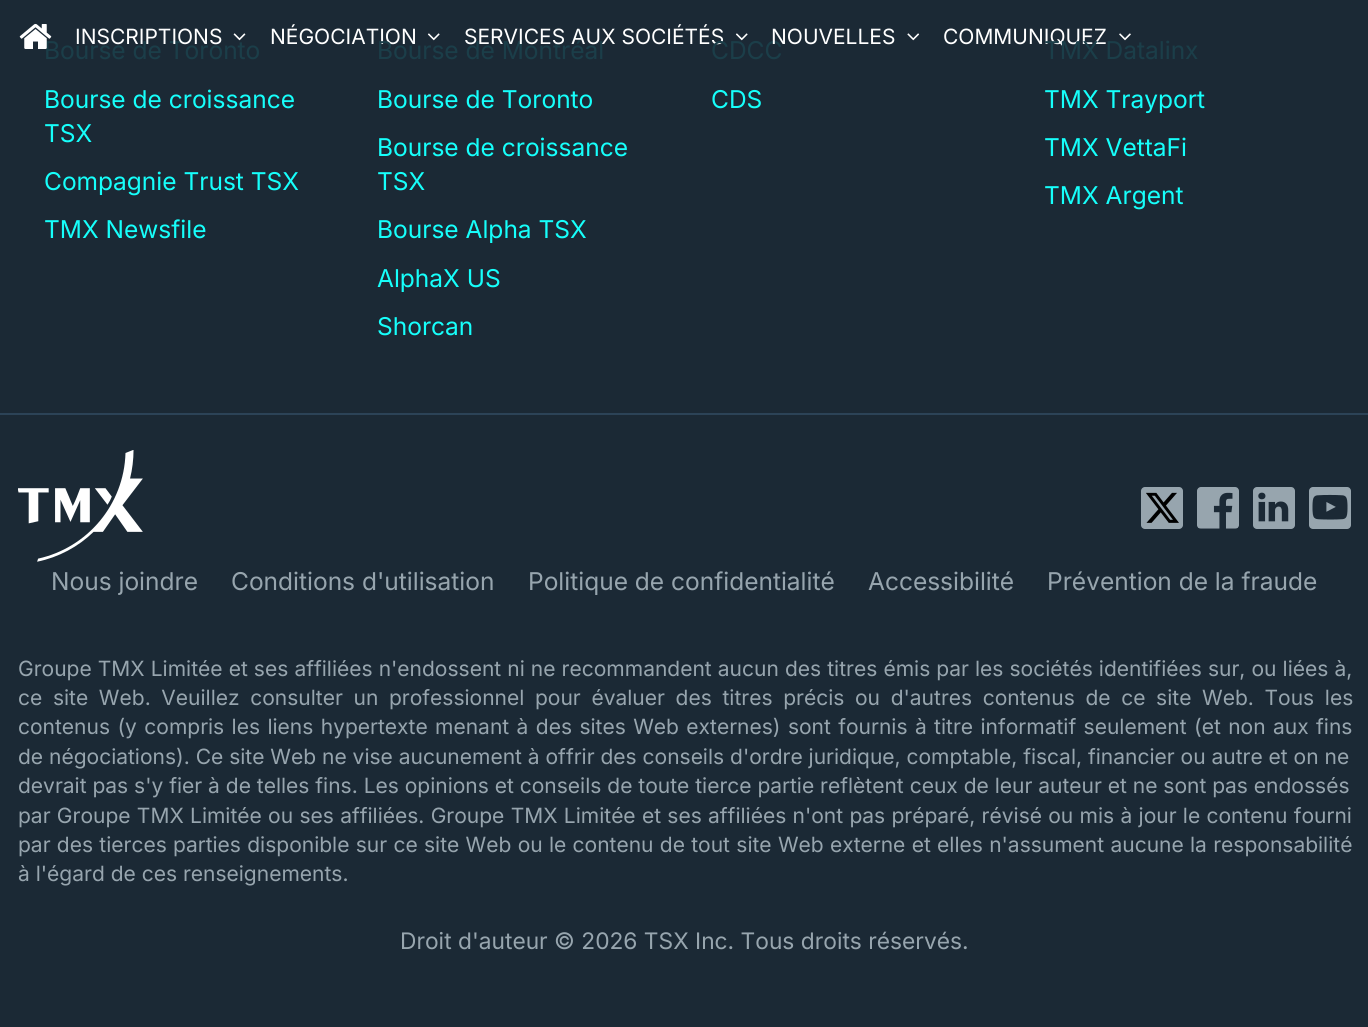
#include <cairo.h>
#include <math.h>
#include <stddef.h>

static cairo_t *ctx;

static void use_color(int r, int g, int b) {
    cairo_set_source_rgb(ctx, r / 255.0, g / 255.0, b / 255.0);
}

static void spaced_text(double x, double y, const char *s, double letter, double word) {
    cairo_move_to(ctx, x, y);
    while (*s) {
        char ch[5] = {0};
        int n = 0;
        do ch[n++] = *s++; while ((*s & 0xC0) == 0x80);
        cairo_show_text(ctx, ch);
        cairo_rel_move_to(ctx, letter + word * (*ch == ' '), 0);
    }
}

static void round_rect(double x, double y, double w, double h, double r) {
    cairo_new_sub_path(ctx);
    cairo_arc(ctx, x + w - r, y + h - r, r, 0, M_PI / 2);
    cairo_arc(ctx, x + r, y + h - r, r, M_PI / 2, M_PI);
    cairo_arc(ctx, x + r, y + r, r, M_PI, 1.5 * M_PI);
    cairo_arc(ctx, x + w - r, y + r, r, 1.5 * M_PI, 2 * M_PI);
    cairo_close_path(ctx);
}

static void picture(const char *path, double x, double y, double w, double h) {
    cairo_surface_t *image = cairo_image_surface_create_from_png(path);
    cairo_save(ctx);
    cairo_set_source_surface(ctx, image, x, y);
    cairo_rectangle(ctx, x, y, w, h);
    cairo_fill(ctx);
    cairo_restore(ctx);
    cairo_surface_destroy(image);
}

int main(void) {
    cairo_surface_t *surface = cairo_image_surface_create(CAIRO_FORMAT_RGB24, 1368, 1027);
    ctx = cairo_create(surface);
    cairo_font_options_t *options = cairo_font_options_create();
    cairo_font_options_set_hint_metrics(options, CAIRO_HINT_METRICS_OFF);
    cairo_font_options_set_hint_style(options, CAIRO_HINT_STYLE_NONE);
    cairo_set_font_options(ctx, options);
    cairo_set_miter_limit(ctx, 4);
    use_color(27, 41, 53);
    cairo_paint(ctx);
    cairo_select_font_face(ctx, "Inter", CAIRO_FONT_SLANT_NORMAL, CAIRO_FONT_WEIGHT_NORMAL);
    cairo_set_font_size(ctx, 24.5);
    use_color(27, 62, 73);
    cairo_move_to(ctx, 44, 59);
    cairo_show_text(ctx, "Bourse de Toronto");
    picture("img1.png", 19, 23, 33, 26);
    cairo_set_font_size(ctx, 21);
    use_color(255, 255, 255);
    cairo_move_to(ctx, 75, 44);
    cairo_show_text(ctx, "INSCRIPTIONS");
    picture("img2.png", 233, 33, 13, 8);
    cairo_move_to(ctx, 270, 44);
    cairo_show_text(ctx, "NÉGOCIATION");
    cairo_set_font_size(ctx, 24.5);
    use_color(27, 62, 73);
    cairo_move_to(ctx, 377, 59);
    cairo_show_text(ctx, "Bourse de Montréal");
    picture("img3.png", 427, 33, 13, 8);
    cairo_set_font_size(ctx, 21);
    use_color(255, 255, 255);
    cairo_move_to(ctx, 464, 44);
    cairo_show_text(ctx, "SERVICES AUX SOCIÉTÉS");
    cairo_set_font_size(ctx, 24.5);
    use_color(27, 62, 73);
    cairo_move_to(ctx, 711, 59);
    cairo_show_text(ctx, "CDCC");
    picture("img3.png", 735, 33, 13, 8);
    cairo_set_font_size(ctx, 21);
    use_color(255, 255, 255);
    cairo_move_to(ctx, 771, 44);
    cairo_show_text(ctx, "NOUVELLES");
    picture("img4.png", 907, 33, 13, 8);
    cairo_move_to(ctx, 943, 44);
    cairo_show_text(ctx, "COMMUNIQUEZ");
    cairo_set_font_size(ctx, 24.5);
    use_color(27, 62, 73);
    cairo_move_to(ctx, 1044, 59);
    cairo_show_text(ctx, "TMX Datalinx");
    picture("img5.png", 1119, 33, 12, 8);
    use_color(22, 255, 251);
    cairo_move_to(ctx, 44, 108);
    cairo_show_text(ctx, "Bourse de croissance");
    cairo_move_to(ctx, 44, 142);
    cairo_show_text(ctx, "TSX");
    cairo_move_to(ctx, 44, 190);
    cairo_show_text(ctx, "Compagnie Trust TSX");
    cairo_move_to(ctx, 44, 238);
    cairo_show_text(ctx, "TMX Newsfile");
    cairo_move_to(ctx, 377, 108);
    cairo_show_text(ctx, "Bourse de Toronto");
    cairo_move_to(ctx, 377, 156);
    cairo_show_text(ctx, "Bourse de croissance");
    cairo_move_to(ctx, 377, 190);
    cairo_show_text(ctx, "TSX");
    cairo_move_to(ctx, 377, 238);
    cairo_show_text(ctx, "Bourse Alpha TSX");
    cairo_move_to(ctx, 377, 287);
    cairo_show_text(ctx, "AlphaX US");
    cairo_move_to(ctx, 377, 335);
    cairo_show_text(ctx, "Shorcan");
    cairo_move_to(ctx, 711, 108);
    cairo_show_text(ctx, "CDS");
    cairo_move_to(ctx, 1044, 108);
    cairo_show_text(ctx, "TMX Trayport");
    cairo_move_to(ctx, 1044, 156);
    cairo_show_text(ctx, "TMX VettaFi");
    cairo_move_to(ctx, 1044, 204);
    cairo_show_text(ctx, "TMX Argent");
    use_color(44, 67, 87);
    cairo_rectangle(ctx, 0, 413, 1368, 2);
    cairo_fill(ctx);
    picture("img6.png", 18, 450, 125, 112);
    use_color(151, 165, 174);
    round_rect(1141, 487, 42, 42, 4);
    cairo_fill(ctx);
    picture("img7.png", 1146, 492, 33, 31);
    picture("img8.png", 1197, 487, 42, 42);
    round_rect(1253, 487, 42, 42, 4);
    cairo_fill(ctx);
    picture("img9.png", 1258, 492, 31, 30);
    round_rect(1309, 487, 42, 42, 4);
    cairo_fill(ctx);
    picture("img10.png", 1312, 494, 36, 26);
    cairo_move_to(ctx, 51, 590);
    cairo_show_text(ctx, "Nous joindre");
    cairo_move_to(ctx, 231, 590);
    cairo_show_text(ctx, "Conditions d'utilisation");
    cairo_move_to(ctx, 528, 590);
    cairo_show_text(ctx, "Politique de confidentialité");
    cairo_move_to(ctx, 868, 590);
    cairo_show_text(ctx, "Accessibilité");
    cairo_move_to(ctx, 1047, 590);
    cairo_show_text(ctx, "Prévention de la fraude");
    cairo_set_font_size(ctx, 21);
    spaced_text(18, 676, "Groupe TMX Limitée et ses affiliées n'endossent ni ne recommandent aucun des titres émis par les sociétés identifiées sur, ou liées à,", 0, 0.2);
    spaced_text(18, 705, "ce site Web. Veuillez consulter un professionnel pour évaluer des titres précis ou d'autres contenus de ce site Web. Tous les", 0, 4.75);
    spaced_text(18, 734, "contenus (y compris les liens hypertexte menant à des sites Web externes) sont fournis à titre informatif seulement (et non aux fins", 0, 1.5);
    cairo_move_to(ctx, 18, 764);
    cairo_show_text(ctx, "de négociations). Ce site Web ne vise aucunement à offrir des conseils d'ordre juridique, comptable, fiscal, financier ou autre et on ne");
    cairo_move_to(ctx, 18, 793);
    cairo_show_text(ctx, "devrait pas s'y fier à de telles fins. Les opinions et conseils de toute tierce partie reflètent ceux de leur auteur et ne sont pas endossés");
    spaced_text(18, 823, "par Groupe TMX Limitée ou ses affiliées. Groupe TMX Limitée et ses affiliées n'ont pas préparé, révisé ou mis à jour le contenu fourni", 0, 0.4);
    spaced_text(18, 852, "par des tierces parties disponible sur ce site Web ou le contenu de tout site Web externe et elles n'assument aucune la responsabilité", 0, 0.4);
    cairo_move_to(ctx, 18, 881);
    cairo_show_text(ctx, "à l'égard de ces renseignements.");
    cairo_set_font_size(ctx, 22.75);
    cairo_move_to(ctx, 400, 949);
    cairo_show_text(ctx, "Droit d'auteur © 2026 TSX Inc. Tous droits réservés.");
    cairo_surface_write_to_png(surface, "result.png");
    cairo_font_options_destroy(options);
    cairo_destroy(ctx);
    cairo_surface_destroy(surface);
    return 0;
}
